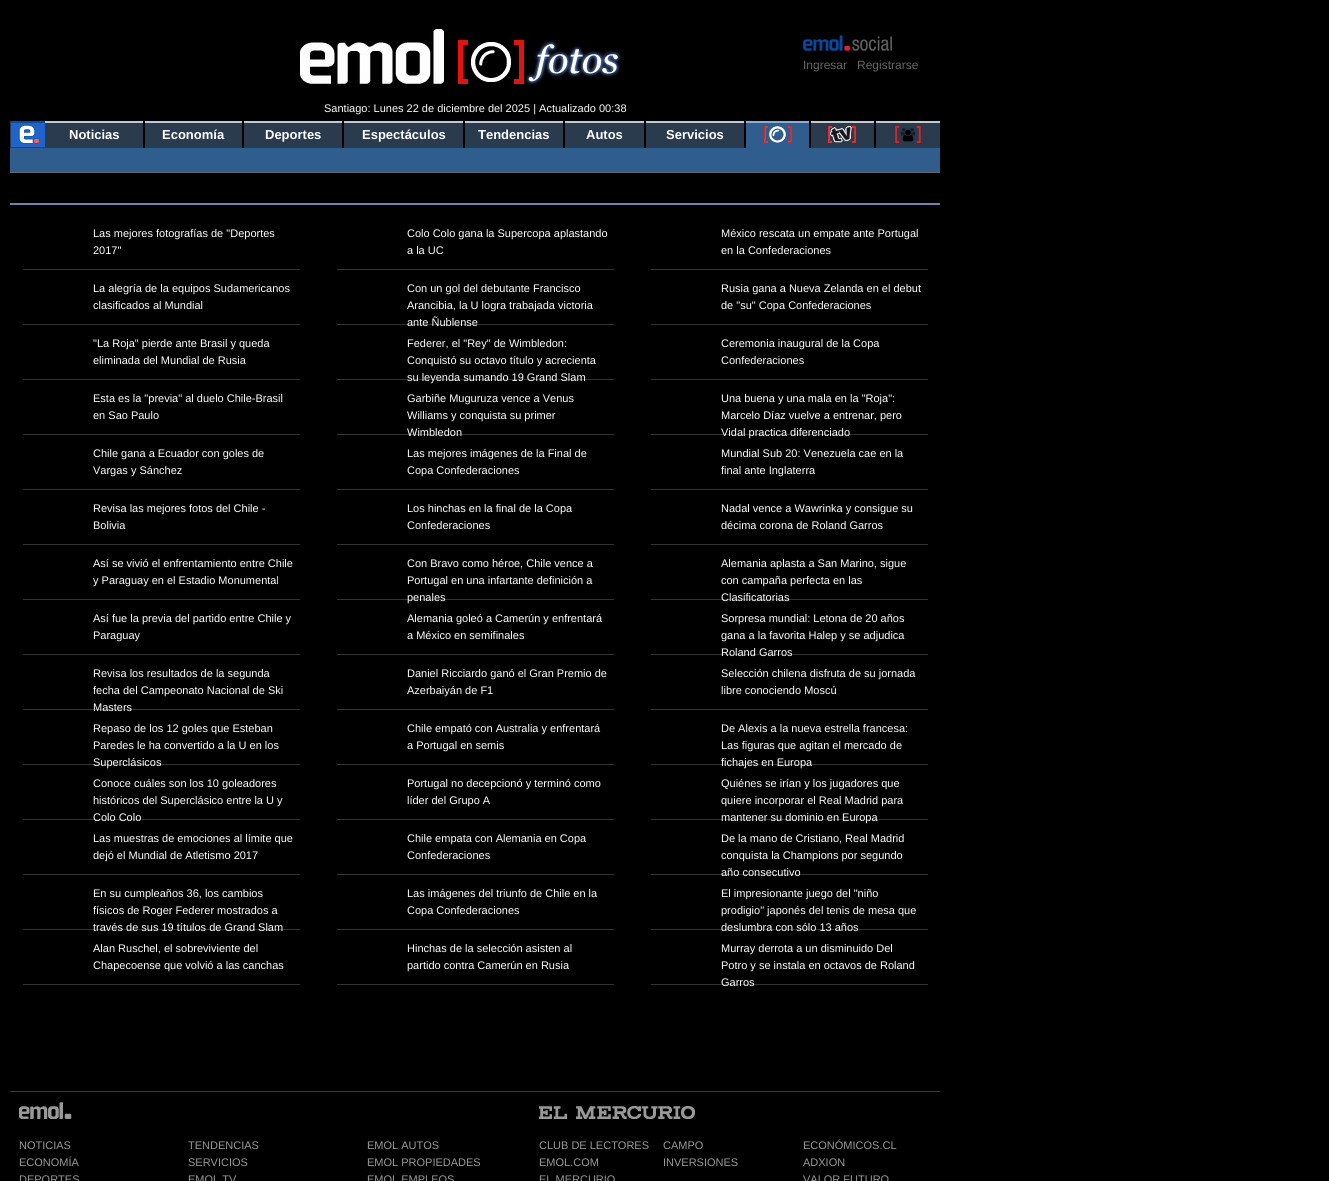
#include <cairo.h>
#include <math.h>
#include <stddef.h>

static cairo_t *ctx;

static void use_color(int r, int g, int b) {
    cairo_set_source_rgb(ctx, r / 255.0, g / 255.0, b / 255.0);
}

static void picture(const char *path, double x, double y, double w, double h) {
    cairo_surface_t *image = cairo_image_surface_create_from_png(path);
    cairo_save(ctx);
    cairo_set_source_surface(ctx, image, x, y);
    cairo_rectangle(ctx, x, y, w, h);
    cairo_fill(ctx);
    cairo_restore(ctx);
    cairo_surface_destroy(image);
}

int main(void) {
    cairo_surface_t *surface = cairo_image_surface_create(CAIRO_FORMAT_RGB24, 1329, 1181);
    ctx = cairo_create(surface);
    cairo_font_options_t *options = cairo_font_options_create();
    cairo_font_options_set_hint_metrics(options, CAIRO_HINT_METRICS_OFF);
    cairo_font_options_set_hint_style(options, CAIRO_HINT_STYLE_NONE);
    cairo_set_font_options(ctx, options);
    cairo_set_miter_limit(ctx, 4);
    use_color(0, 0, 0);
    cairo_paint(ctx);
    picture("img1.png", 295, 24, 153, 64);
    picture("img2.png", 452, 35, 170, 54);
    picture("img3.png", 803, 35, 89, 16);
    cairo_select_font_face(ctx, "Liberation Sans", CAIRO_FONT_SLANT_NORMAL, CAIRO_FONT_WEIGHT_NORMAL);
    cairo_set_font_size(ctx, 12);
    use_color(102, 102, 102);
    cairo_move_to(ctx, 803, 69);
    cairo_show_text(ctx, "Ingresar");
    cairo_move_to(ctx, 857, 69);
    cairo_show_text(ctx, "Registrarse");
    cairo_set_font_size(ctx, 11);
    use_color(255, 255, 255);
    cairo_move_to(ctx, 324, 112);
    cairo_show_text(ctx, "Santiago: Lunes 22 de diciembre del 2025 | Actualizado 00:38");
    use_color(41, 59, 77);
    cairo_rectangle(ctx, 10, 121, 1, 27);
    cairo_fill(ctx);
    picture("img4.png", 11, 121, 34, 27);
    cairo_rectangle(ctx, 45, 123, 98, 25);
    cairo_fill(ctx);
    use_color(190, 203, 211);
    cairo_rectangle(ctx, 45, 121, 98, 2);
    cairo_fill(ctx);
    cairo_select_font_face(ctx, "Liberation Sans", CAIRO_FONT_SLANT_NORMAL, CAIRO_FONT_WEIGHT_BOLD);
    cairo_set_font_size(ctx, 13);
    use_color(255, 255, 255);
    cairo_move_to(ctx, 69, 139);
    cairo_show_text(ctx, "Noticias");
    use_color(41, 59, 77);
    cairo_rectangle(ctx, 145, 123, 97, 25);
    cairo_fill(ctx);
    use_color(190, 203, 211);
    cairo_rectangle(ctx, 145, 121, 97, 2);
    cairo_fill(ctx);
    use_color(255, 255, 255);
    cairo_move_to(ctx, 162, 139);
    cairo_show_text(ctx, "Economía");
    use_color(41, 59, 77);
    cairo_rectangle(ctx, 244, 123, 98, 25);
    cairo_fill(ctx);
    use_color(190, 203, 211);
    cairo_rectangle(ctx, 244, 121, 98, 2);
    cairo_fill(ctx);
    use_color(255, 255, 255);
    cairo_move_to(ctx, 265, 139);
    cairo_show_text(ctx, "Deportes");
    use_color(41, 59, 77);
    cairo_rectangle(ctx, 344, 123, 119, 25);
    cairo_fill(ctx);
    use_color(190, 203, 211);
    cairo_rectangle(ctx, 344, 121, 119, 2);
    cairo_fill(ctx);
    use_color(255, 255, 255);
    cairo_move_to(ctx, 362, 139);
    cairo_show_text(ctx, "Espectáculos");
    use_color(41, 59, 77);
    cairo_rectangle(ctx, 465, 123, 98, 25);
    cairo_fill(ctx);
    use_color(190, 203, 211);
    cairo_rectangle(ctx, 465, 121, 98, 2);
    cairo_fill(ctx);
    use_color(255, 255, 255);
    cairo_move_to(ctx, 478, 139);
    cairo_show_text(ctx, "Tendencias");
    use_color(41, 59, 77);
    cairo_rectangle(ctx, 565, 123, 79, 25);
    cairo_fill(ctx);
    use_color(190, 203, 211);
    cairo_rectangle(ctx, 565, 121, 79, 2);
    cairo_fill(ctx);
    use_color(255, 255, 255);
    cairo_move_to(ctx, 586, 139);
    cairo_show_text(ctx, "Autos");
    use_color(41, 59, 77);
    cairo_rectangle(ctx, 646, 123, 98, 25);
    cairo_fill(ctx);
    use_color(190, 203, 211);
    cairo_rectangle(ctx, 646, 121, 98, 2);
    cairo_fill(ctx);
    use_color(255, 255, 255);
    cairo_move_to(ctx, 666, 139);
    cairo_show_text(ctx, "Servicios");
    use_color(47, 93, 141);
    cairo_rectangle(ctx, 746, 123, 63, 25);
    cairo_fill(ctx);
    use_color(133, 175, 219);
    cairo_rectangle(ctx, 746, 121, 63, 2);
    cairo_fill(ctx);
    picture("img5.png", 764, 126, 28, 17);
    use_color(41, 59, 77);
    cairo_rectangle(ctx, 811, 123, 63, 25);
    cairo_fill(ctx);
    use_color(190, 203, 211);
    cairo_rectangle(ctx, 811, 121, 63, 2);
    cairo_fill(ctx);
    picture("img6.png", 828, 126, 28, 17);
    use_color(41, 59, 77);
    cairo_rectangle(ctx, 876, 123, 64, 25);
    cairo_fill(ctx);
    use_color(190, 203, 211);
    cairo_rectangle(ctx, 876, 121, 64, 2);
    cairo_fill(ctx);
    picture("img7.png", 895, 126, 26, 17);
    use_color(47, 93, 141);
    cairo_rectangle(ctx, 10, 148, 930, 24);
    cairo_fill(ctx);
    use_color(102, 102, 102);
    cairo_rectangle(ctx, 10, 172, 930, 1);
    cairo_fill(ctx);
    use_color(107, 135, 175);
    cairo_rectangle(ctx, 10, 203, 930, 2);
    cairo_fill(ctx);
    use_color(51, 51, 51);
    cairo_rectangle(ctx, 23, 269, 277, 1);
    cairo_fill(ctx);
    cairo_select_font_face(ctx, "Liberation Sans", CAIRO_FONT_SLANT_NORMAL, CAIRO_FONT_WEIGHT_NORMAL);
    cairo_set_font_size(ctx, 11);
    use_color(255, 255, 255);
    cairo_move_to(ctx, 93, 237);
    cairo_show_text(ctx, "Las mejores fotografías de \"Deportes");
    cairo_move_to(ctx, 93, 254);
    cairo_show_text(ctx, "2017\"");
    use_color(51, 51, 51);
    cairo_rectangle(ctx, 337, 269, 277, 1);
    cairo_fill(ctx);
    use_color(255, 255, 255);
    cairo_move_to(ctx, 407, 237);
    cairo_show_text(ctx, "Colo Colo gana la Supercopa aplastando");
    cairo_move_to(ctx, 407, 254);
    cairo_show_text(ctx, "a la UC");
    use_color(51, 51, 51);
    cairo_rectangle(ctx, 651, 269, 277, 1);
    cairo_fill(ctx);
    use_color(255, 255, 255);
    cairo_move_to(ctx, 721, 237);
    cairo_show_text(ctx, "México rescata un empate ante Portugal");
    cairo_move_to(ctx, 721, 254);
    cairo_show_text(ctx, "en la Confederaciones");
    use_color(51, 51, 51);
    cairo_rectangle(ctx, 23, 324, 277, 1);
    cairo_fill(ctx);
    use_color(255, 255, 255);
    cairo_move_to(ctx, 93, 292);
    cairo_show_text(ctx, "La alegría de la equipos Sudamericanos");
    cairo_move_to(ctx, 93, 309);
    cairo_show_text(ctx, "clasificados al Mundial");
    use_color(51, 51, 51);
    cairo_rectangle(ctx, 337, 324, 277, 1);
    cairo_fill(ctx);
    use_color(255, 255, 255);
    cairo_move_to(ctx, 407, 292);
    cairo_show_text(ctx, "Con un gol del debutante Francisco");
    cairo_move_to(ctx, 407, 309);
    cairo_show_text(ctx, "Arancibia, la U logra trabajada victoria");
    cairo_move_to(ctx, 407, 326);
    cairo_show_text(ctx, "ante Ñublense");
    use_color(51, 51, 51);
    cairo_rectangle(ctx, 651, 324, 277, 1);
    cairo_fill(ctx);
    use_color(255, 255, 255);
    cairo_move_to(ctx, 721, 292);
    cairo_show_text(ctx, "Rusia gana a Nueva Zelanda en el debut");
    cairo_move_to(ctx, 721, 309);
    cairo_show_text(ctx, "de \"su\" Copa Confederaciones");
    use_color(51, 51, 51);
    cairo_rectangle(ctx, 23, 379, 277, 1);
    cairo_fill(ctx);
    use_color(255, 255, 255);
    cairo_move_to(ctx, 93, 347);
    cairo_show_text(ctx, "\"La Roja\" pierde ante Brasil y queda");
    cairo_move_to(ctx, 93, 364);
    cairo_show_text(ctx, "eliminada del Mundial de Rusia");
    use_color(51, 51, 51);
    cairo_rectangle(ctx, 337, 379, 277, 1);
    cairo_fill(ctx);
    use_color(255, 255, 255);
    cairo_move_to(ctx, 407, 347);
    cairo_show_text(ctx, "Federer, el \"Rey\" de Wimbledon:");
    cairo_move_to(ctx, 407, 364);
    cairo_show_text(ctx, "Conquistó su octavo título y acrecienta");
    cairo_move_to(ctx, 407, 381);
    cairo_show_text(ctx, "su leyenda sumando 19 Grand Slam");
    use_color(51, 51, 51);
    cairo_rectangle(ctx, 651, 379, 277, 1);
    cairo_fill(ctx);
    use_color(255, 255, 255);
    cairo_move_to(ctx, 721, 347);
    cairo_show_text(ctx, "Ceremonia inaugural de la Copa");
    cairo_move_to(ctx, 721, 364);
    cairo_show_text(ctx, "Confederaciones");
    use_color(51, 51, 51);
    cairo_rectangle(ctx, 23, 434, 277, 1);
    cairo_fill(ctx);
    use_color(255, 255, 255);
    cairo_move_to(ctx, 93, 402);
    cairo_show_text(ctx, "Esta es la \"previa\" al duelo Chile-Brasil");
    cairo_move_to(ctx, 93, 419);
    cairo_show_text(ctx, "en Sao Paulo");
    use_color(51, 51, 51);
    cairo_rectangle(ctx, 337, 434, 277, 1);
    cairo_fill(ctx);
    use_color(255, 255, 255);
    cairo_move_to(ctx, 407, 402);
    cairo_show_text(ctx, "Garbiñe Muguruza vence a Venus");
    cairo_move_to(ctx, 407, 419);
    cairo_show_text(ctx, "Williams y conquista su primer");
    cairo_move_to(ctx, 407, 436);
    cairo_show_text(ctx, "Wimbledon");
    use_color(51, 51, 51);
    cairo_rectangle(ctx, 651, 434, 277, 1);
    cairo_fill(ctx);
    use_color(255, 255, 255);
    cairo_move_to(ctx, 721, 402);
    cairo_show_text(ctx, "Una buena y una mala en la \"Roja\":");
    cairo_move_to(ctx, 721, 419);
    cairo_show_text(ctx, "Marcelo Díaz vuelve a entrenar, pero");
    cairo_move_to(ctx, 721, 436);
    cairo_show_text(ctx, "Vidal practica diferenciado");
    use_color(51, 51, 51);
    cairo_rectangle(ctx, 23, 489, 277, 1);
    cairo_fill(ctx);
    use_color(255, 255, 255);
    cairo_move_to(ctx, 93, 457);
    cairo_show_text(ctx, "Chile gana a Ecuador con goles de");
    cairo_move_to(ctx, 93, 474);
    cairo_show_text(ctx, "Vargas y Sánchez");
    use_color(51, 51, 51);
    cairo_rectangle(ctx, 337, 489, 277, 1);
    cairo_fill(ctx);
    use_color(255, 255, 255);
    cairo_move_to(ctx, 407, 457);
    cairo_show_text(ctx, "Las mejores imágenes de la Final de");
    cairo_move_to(ctx, 407, 474);
    cairo_show_text(ctx, "Copa Confederaciones");
    use_color(51, 51, 51);
    cairo_rectangle(ctx, 651, 489, 277, 1);
    cairo_fill(ctx);
    use_color(255, 255, 255);
    cairo_move_to(ctx, 721, 457);
    cairo_show_text(ctx, "Mundial Sub 20: Venezuela cae en la");
    cairo_move_to(ctx, 721, 474);
    cairo_show_text(ctx, "final ante Inglaterra");
    use_color(51, 51, 51);
    cairo_rectangle(ctx, 23, 544, 277, 1);
    cairo_fill(ctx);
    use_color(255, 255, 255);
    cairo_move_to(ctx, 93, 512);
    cairo_show_text(ctx, "Revisa las mejores fotos del Chile -");
    cairo_move_to(ctx, 93, 529);
    cairo_show_text(ctx, "Bolivia");
    use_color(51, 51, 51);
    cairo_rectangle(ctx, 337, 544, 277, 1);
    cairo_fill(ctx);
    use_color(255, 255, 255);
    cairo_move_to(ctx, 407, 512);
    cairo_show_text(ctx, "Los hinchas en la final de la Copa");
    cairo_move_to(ctx, 407, 529);
    cairo_show_text(ctx, "Confederaciones");
    use_color(51, 51, 51);
    cairo_rectangle(ctx, 651, 544, 277, 1);
    cairo_fill(ctx);
    use_color(255, 255, 255);
    cairo_move_to(ctx, 721, 512);
    cairo_show_text(ctx, "Nadal vence a Wawrinka y consigue su");
    cairo_move_to(ctx, 721, 529);
    cairo_show_text(ctx, "décima corona de Roland Garros");
    use_color(51, 51, 51);
    cairo_rectangle(ctx, 23, 599, 277, 1);
    cairo_fill(ctx);
    use_color(255, 255, 255);
    cairo_move_to(ctx, 93, 567);
    cairo_show_text(ctx, "Así se vivió el enfrentamiento entre Chile");
    cairo_move_to(ctx, 93, 584);
    cairo_show_text(ctx, "y Paraguay en el Estadio Monumental");
    use_color(51, 51, 51);
    cairo_rectangle(ctx, 337, 599, 277, 1);
    cairo_fill(ctx);
    use_color(255, 255, 255);
    cairo_move_to(ctx, 407, 567);
    cairo_show_text(ctx, "Con Bravo como héroe, Chile vence a");
    cairo_move_to(ctx, 407, 584);
    cairo_show_text(ctx, "Portugal en una infartante definición a");
    cairo_move_to(ctx, 407, 601);
    cairo_show_text(ctx, "penales");
    use_color(51, 51, 51);
    cairo_rectangle(ctx, 651, 599, 277, 1);
    cairo_fill(ctx);
    use_color(255, 255, 255);
    cairo_move_to(ctx, 721, 567);
    cairo_show_text(ctx, "Alemania aplasta a San Marino, sigue");
    cairo_move_to(ctx, 721, 584);
    cairo_show_text(ctx, "con campaña perfecta en las");
    cairo_move_to(ctx, 721, 601);
    cairo_show_text(ctx, "Clasificatorias");
    use_color(51, 51, 51);
    cairo_rectangle(ctx, 23, 654, 277, 1);
    cairo_fill(ctx);
    use_color(255, 255, 255);
    cairo_move_to(ctx, 93, 622);
    cairo_show_text(ctx, "Así fue la previa del partido entre Chile y");
    cairo_move_to(ctx, 93, 639);
    cairo_show_text(ctx, "Paraguay");
    use_color(51, 51, 51);
    cairo_rectangle(ctx, 337, 654, 277, 1);
    cairo_fill(ctx);
    use_color(255, 255, 255);
    cairo_move_to(ctx, 407, 622);
    cairo_show_text(ctx, "Alemania goleó a Camerún y enfrentará");
    cairo_move_to(ctx, 407, 639);
    cairo_show_text(ctx, "a México en semifinales");
    use_color(51, 51, 51);
    cairo_rectangle(ctx, 651, 654, 277, 1);
    cairo_fill(ctx);
    use_color(255, 255, 255);
    cairo_move_to(ctx, 721, 622);
    cairo_show_text(ctx, "Sorpresa mundial: Letona de 20 años");
    cairo_move_to(ctx, 721, 639);
    cairo_show_text(ctx, "gana a la favorita Halep y se adjudica");
    cairo_move_to(ctx, 721, 656);
    cairo_show_text(ctx, "Roland Garros");
    use_color(51, 51, 51);
    cairo_rectangle(ctx, 23, 709, 277, 1);
    cairo_fill(ctx);
    use_color(255, 255, 255);
    cairo_move_to(ctx, 93, 677);
    cairo_show_text(ctx, "Revisa los resultados de la segunda");
    cairo_move_to(ctx, 93, 694);
    cairo_show_text(ctx, "fecha del Campeonato Nacional de Ski");
    cairo_move_to(ctx, 93, 711);
    cairo_show_text(ctx, "Masters");
    use_color(51, 51, 51);
    cairo_rectangle(ctx, 337, 709, 277, 1);
    cairo_fill(ctx);
    use_color(255, 255, 255);
    cairo_move_to(ctx, 407, 677);
    cairo_show_text(ctx, "Daniel Ricciardo ganó el Gran Premio de");
    cairo_move_to(ctx, 407, 694);
    cairo_show_text(ctx, "Azerbaiyán de F1");
    use_color(51, 51, 51);
    cairo_rectangle(ctx, 651, 709, 277, 1);
    cairo_fill(ctx);
    use_color(255, 255, 255);
    cairo_move_to(ctx, 721, 677);
    cairo_show_text(ctx, "Selección chilena disfruta de su jornada");
    cairo_move_to(ctx, 721, 694);
    cairo_show_text(ctx, "libre conociendo Moscú");
    use_color(51, 51, 51);
    cairo_rectangle(ctx, 23, 764, 277, 1);
    cairo_fill(ctx);
    use_color(255, 255, 255);
    cairo_move_to(ctx, 93, 732);
    cairo_show_text(ctx, "Repaso de los 12 goles que Esteban");
    cairo_move_to(ctx, 93, 749);
    cairo_show_text(ctx, "Paredes le ha convertido a la U en los");
    cairo_move_to(ctx, 93, 766);
    cairo_show_text(ctx, "Superclásicos");
    use_color(51, 51, 51);
    cairo_rectangle(ctx, 337, 764, 277, 1);
    cairo_fill(ctx);
    use_color(255, 255, 255);
    cairo_move_to(ctx, 407, 732);
    cairo_show_text(ctx, "Chile empató con Australia y enfrentará");
    cairo_move_to(ctx, 407, 749);
    cairo_show_text(ctx, "a Portugal en semis");
    use_color(51, 51, 51);
    cairo_rectangle(ctx, 651, 764, 277, 1);
    cairo_fill(ctx);
    use_color(255, 255, 255);
    cairo_move_to(ctx, 721, 732);
    cairo_show_text(ctx, "De Alexis a la nueva estrella francesa:");
    cairo_move_to(ctx, 721, 749);
    cairo_show_text(ctx, "Las figuras que agitan el mercado de");
    cairo_move_to(ctx, 721, 766);
    cairo_show_text(ctx, "fichajes en Europa");
    use_color(51, 51, 51);
    cairo_rectangle(ctx, 23, 819, 277, 1);
    cairo_fill(ctx);
    use_color(255, 255, 255);
    cairo_move_to(ctx, 93, 787);
    cairo_show_text(ctx, "Conoce cuáles son los 10 goleadores");
    cairo_move_to(ctx, 93, 804);
    cairo_show_text(ctx, "históricos del Superclásico entre la U y");
    cairo_move_to(ctx, 93, 821);
    cairo_show_text(ctx, "Colo Colo");
    use_color(51, 51, 51);
    cairo_rectangle(ctx, 337, 819, 277, 1);
    cairo_fill(ctx);
    use_color(255, 255, 255);
    cairo_move_to(ctx, 407, 787);
    cairo_show_text(ctx, "Portugal no decepcionó y terminó como");
    cairo_move_to(ctx, 407, 804);
    cairo_show_text(ctx, "líder del Grupo A");
    use_color(51, 51, 51);
    cairo_rectangle(ctx, 651, 819, 277, 1);
    cairo_fill(ctx);
    use_color(255, 255, 255);
    cairo_move_to(ctx, 721, 787);
    cairo_show_text(ctx, "Quiénes se irían y los jugadores que");
    cairo_move_to(ctx, 721, 804);
    cairo_show_text(ctx, "quiere incorporar el Real Madrid para");
    cairo_move_to(ctx, 721, 821);
    cairo_show_text(ctx, "mantener su dominio en Europa");
    use_color(51, 51, 51);
    cairo_rectangle(ctx, 23, 874, 277, 1);
    cairo_fill(ctx);
    use_color(255, 255, 255);
    cairo_move_to(ctx, 93, 842);
    cairo_show_text(ctx, "Las muestras de emociones al límite que");
    cairo_move_to(ctx, 93, 859);
    cairo_show_text(ctx, "dejó el Mundial de Atletismo 2017");
    use_color(51, 51, 51);
    cairo_rectangle(ctx, 337, 874, 277, 1);
    cairo_fill(ctx);
    use_color(255, 255, 255);
    cairo_move_to(ctx, 407, 842);
    cairo_show_text(ctx, "Chile empata con Alemania en Copa");
    cairo_move_to(ctx, 407, 859);
    cairo_show_text(ctx, "Confederaciones");
    use_color(51, 51, 51);
    cairo_rectangle(ctx, 651, 874, 277, 1);
    cairo_fill(ctx);
    use_color(255, 255, 255);
    cairo_move_to(ctx, 721, 842);
    cairo_show_text(ctx, "De la mano de Cristiano, Real Madrid");
    cairo_move_to(ctx, 721, 859);
    cairo_show_text(ctx, "conquista la Champions por segundo");
    cairo_move_to(ctx, 721, 876);
    cairo_show_text(ctx, "año consecutivo");
    use_color(51, 51, 51);
    cairo_rectangle(ctx, 23, 929, 277, 1);
    cairo_fill(ctx);
    use_color(255, 255, 255);
    cairo_move_to(ctx, 93, 897);
    cairo_show_text(ctx, "En su cumpleaños 36, los cambios");
    cairo_move_to(ctx, 93, 914);
    cairo_show_text(ctx, "físicos de Roger Federer mostrados a");
    cairo_move_to(ctx, 93, 931);
    cairo_show_text(ctx, "través de sus 19 títulos de Grand Slam");
    use_color(51, 51, 51);
    cairo_rectangle(ctx, 337, 929, 277, 1);
    cairo_fill(ctx);
    use_color(255, 255, 255);
    cairo_move_to(ctx, 407, 897);
    cairo_show_text(ctx, "Las imágenes del triunfo de Chile en la");
    cairo_move_to(ctx, 407, 914);
    cairo_show_text(ctx, "Copa Confederaciones");
    use_color(51, 51, 51);
    cairo_rectangle(ctx, 651, 929, 277, 1);
    cairo_fill(ctx);
    use_color(255, 255, 255);
    cairo_move_to(ctx, 721, 897);
    cairo_show_text(ctx, "El impresionante juego del \"niño");
    cairo_move_to(ctx, 721, 914);
    cairo_show_text(ctx, "prodigio\" japonés del tenis de mesa que");
    cairo_move_to(ctx, 721, 931);
    cairo_show_text(ctx, "deslumbra con sólo 13 años");
    use_color(51, 51, 51);
    cairo_rectangle(ctx, 23, 984, 277, 1);
    cairo_fill(ctx);
    use_color(255, 255, 255);
    cairo_move_to(ctx, 93, 952);
    cairo_show_text(ctx, "Alan Ruschel, el sobreviviente del");
    cairo_move_to(ctx, 93, 969);
    cairo_show_text(ctx, "Chapecoense que volvió a las canchas");
    use_color(51, 51, 51);
    cairo_rectangle(ctx, 337, 984, 277, 1);
    cairo_fill(ctx);
    use_color(255, 255, 255);
    cairo_move_to(ctx, 407, 952);
    cairo_show_text(ctx, "Hinchas de la selección asisten al");
    cairo_move_to(ctx, 407, 969);
    cairo_show_text(ctx, "partido contra Camerún en Rusia");
    use_color(51, 51, 51);
    cairo_rectangle(ctx, 651, 984, 277, 1);
    cairo_fill(ctx);
    use_color(255, 255, 255);
    cairo_move_to(ctx, 721, 952);
    cairo_show_text(ctx, "Murray derrota a un disminuido Del");
    cairo_move_to(ctx, 721, 969);
    cairo_show_text(ctx, "Potro y se instala en octavos de Roland");
    cairo_move_to(ctx, 721, 986);
    cairo_show_text(ctx, "Garros");
    use_color(55, 55, 55);
    cairo_rectangle(ctx, 10, 1091, 930, 1);
    cairo_fill(ctx);
    picture("img8.png", 19, 1102, 53, 17);
    use_color(153, 153, 153);
    cairo_move_to(ctx, 19, 1149);
    cairo_show_text(ctx, "NOTICIAS");
    cairo_move_to(ctx, 19, 1166);
    cairo_show_text(ctx, "ECONOMÍA");
    cairo_move_to(ctx, 19, 1183);
    cairo_show_text(ctx, "DEPORTES");
    cairo_move_to(ctx, 188, 1149);
    cairo_show_text(ctx, "TENDENCIAS");
    cairo_move_to(ctx, 188, 1166);
    cairo_show_text(ctx, "SERVICIOS");
    cairo_move_to(ctx, 188, 1183);
    cairo_show_text(ctx, "EMOL TV");
    cairo_move_to(ctx, 367, 1149);
    cairo_show_text(ctx, "EMOL AUTOS");
    cairo_move_to(ctx, 367, 1166);
    cairo_show_text(ctx, "EMOL PROPIEDADES");
    cairo_move_to(ctx, 367, 1183);
    cairo_show_text(ctx, "EMOL EMPLEOS");
    picture("img9.png", 539, 1106, 156, 13);
    cairo_move_to(ctx, 539, 1149);
    cairo_show_text(ctx, "CLUB DE LECTORES");
    cairo_move_to(ctx, 539, 1166);
    cairo_show_text(ctx, "EMOL.COM");
    cairo_move_to(ctx, 539, 1183);
    cairo_show_text(ctx, "EL MERCURIO");
    cairo_move_to(ctx, 663, 1149);
    cairo_show_text(ctx, "CAMPO");
    cairo_move_to(ctx, 663, 1166);
    cairo_show_text(ctx, "INVERSIONES");
    cairo_move_to(ctx, 803, 1149);
    cairo_show_text(ctx, "ECONÓMICOS.CL");
    cairo_move_to(ctx, 803, 1166);
    cairo_show_text(ctx, "ADXION");
    cairo_move_to(ctx, 803, 1183);
    cairo_show_text(ctx, "VALOR FUTURO");
    cairo_surface_write_to_png(surface, "result.png");
    cairo_font_options_destroy(options);
    cairo_destroy(ctx);
    cairo_surface_destroy(surface);
    return 0;
}
